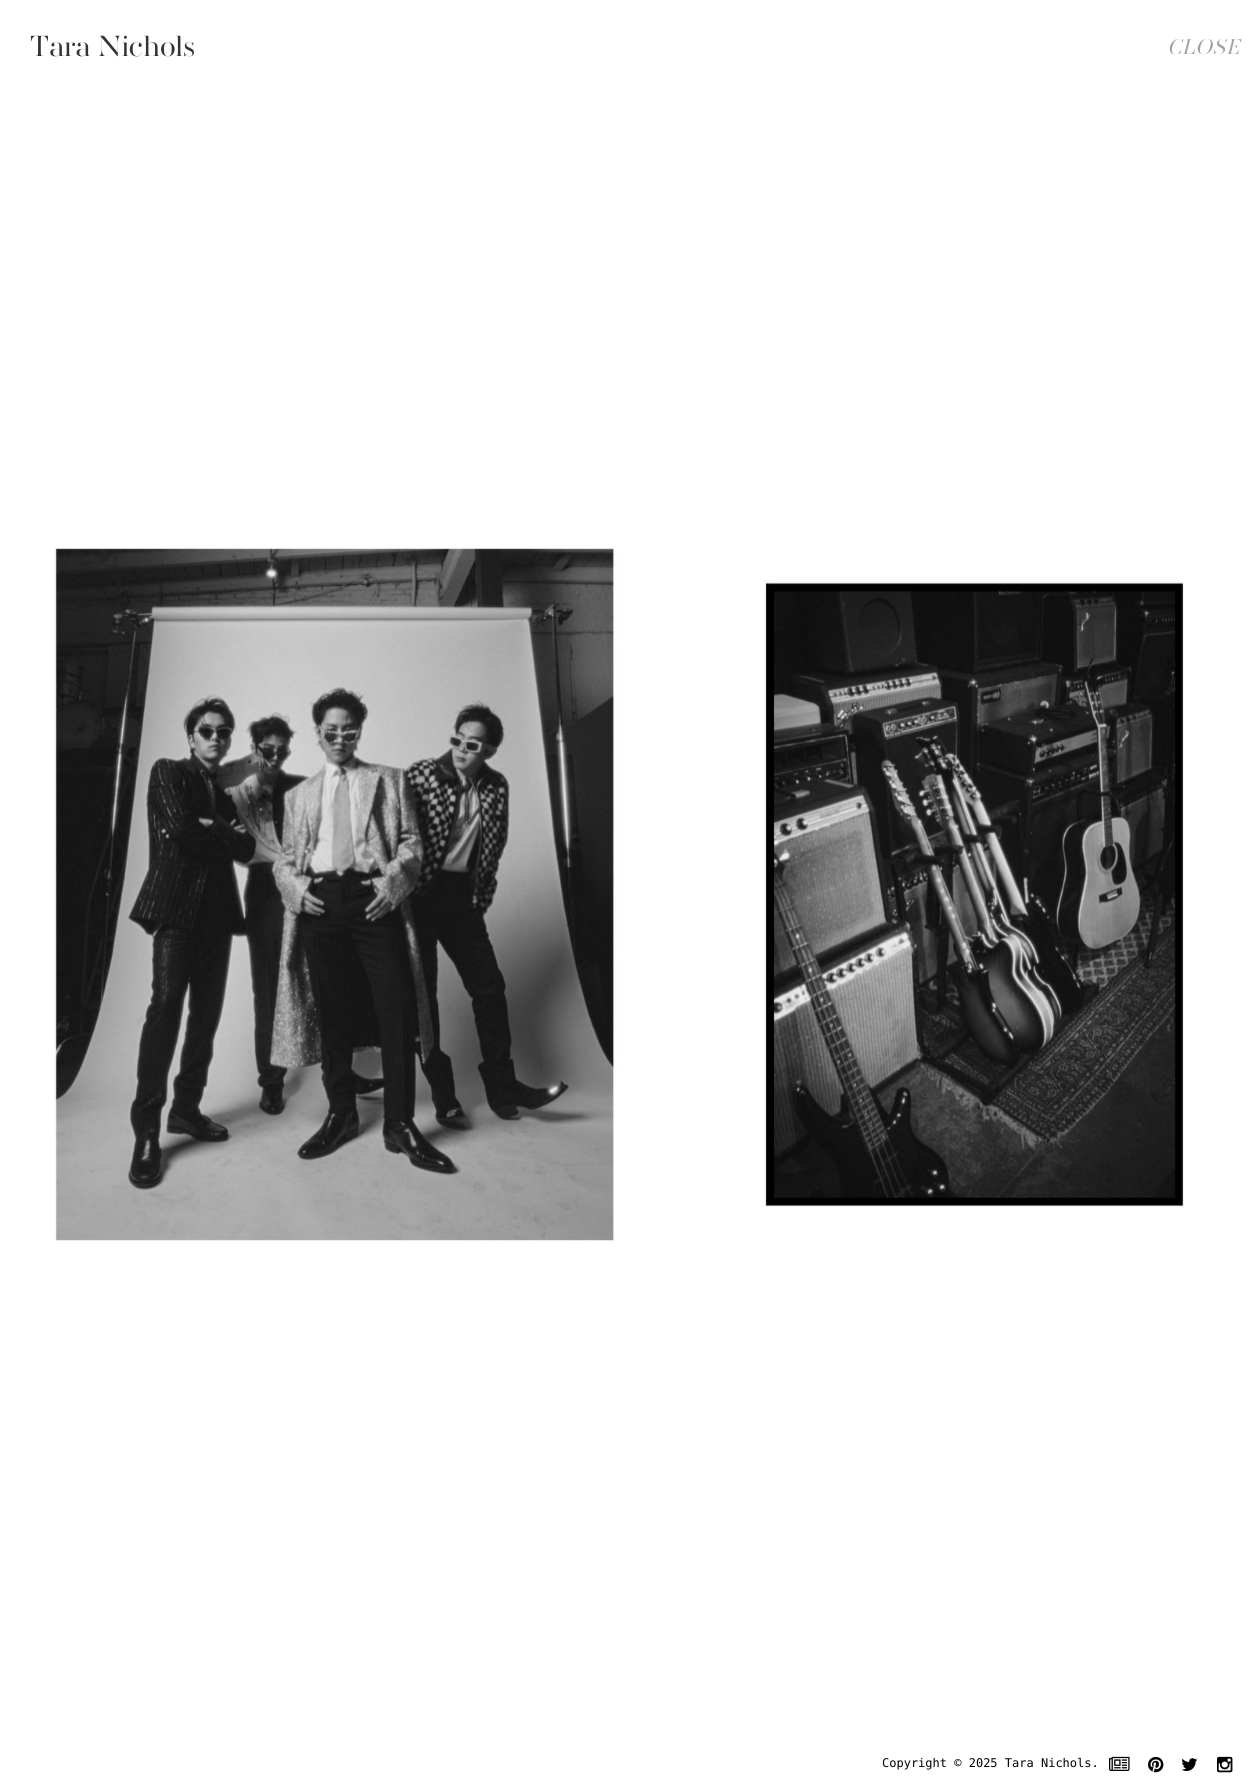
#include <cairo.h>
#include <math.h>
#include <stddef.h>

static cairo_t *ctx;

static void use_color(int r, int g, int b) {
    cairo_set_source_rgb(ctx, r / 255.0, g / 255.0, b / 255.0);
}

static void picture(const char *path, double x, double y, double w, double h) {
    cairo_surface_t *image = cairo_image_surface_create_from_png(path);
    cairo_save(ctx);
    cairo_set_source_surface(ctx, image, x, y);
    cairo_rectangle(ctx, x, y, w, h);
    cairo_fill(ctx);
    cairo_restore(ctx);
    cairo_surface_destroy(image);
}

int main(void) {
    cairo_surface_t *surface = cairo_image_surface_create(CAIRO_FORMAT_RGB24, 1252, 1789);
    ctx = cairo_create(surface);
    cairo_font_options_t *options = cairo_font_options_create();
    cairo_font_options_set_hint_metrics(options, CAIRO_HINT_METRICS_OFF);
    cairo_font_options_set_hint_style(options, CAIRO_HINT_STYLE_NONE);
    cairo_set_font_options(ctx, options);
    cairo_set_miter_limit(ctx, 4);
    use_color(255, 255, 255);
    cairo_paint(ctx);
    cairo_select_font_face(ctx, "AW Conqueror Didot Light", CAIRO_FONT_SLANT_NORMAL, CAIRO_FONT_WEIGHT_NORMAL);
    cairo_set_font_size(ctx, 30);
    use_color(51, 51, 51);
    cairo_move_to(ctx, 30, 56);
    cairo_show_text(ctx, "Tara Nichols");
    cairo_select_font_face(ctx, "AW Conqueror Didot Light", CAIRO_FONT_SLANT_ITALIC, CAIRO_FONT_WEIGHT_NORMAL);
    cairo_set_font_size(ctx, 22);
    use_color(160, 160, 160);
    cairo_move_to(ctx, 1167, 54);
    cairo_show_text(ctx, "CLOSE");
    picture("img1.png", 54, 548, 1130, 694);
    cairo_select_font_face(ctx, "DejaVu Sans Mono", CAIRO_FONT_SLANT_NORMAL, CAIRO_FONT_WEIGHT_NORMAL);
    cairo_set_font_size(ctx, 12);
    use_color(0, 0, 0);
    cairo_move_to(ctx, 882, 1767);
    cairo_show_text(ctx, "Copyright © 2025 Tara Nichols.");
    picture("img2.png", 1109, 1756, 21, 15);
    picture("img3.png", 1148, 1756, 16, 17);
    picture("img4.png", 1181, 1758, 17, 13);
    picture("img5.png", 1217, 1756, 16, 17);
    cairo_surface_write_to_png(surface, "result.png");
    cairo_font_options_destroy(options);
    cairo_destroy(ctx);
    cairo_surface_destroy(surface);
    return 0;
}
